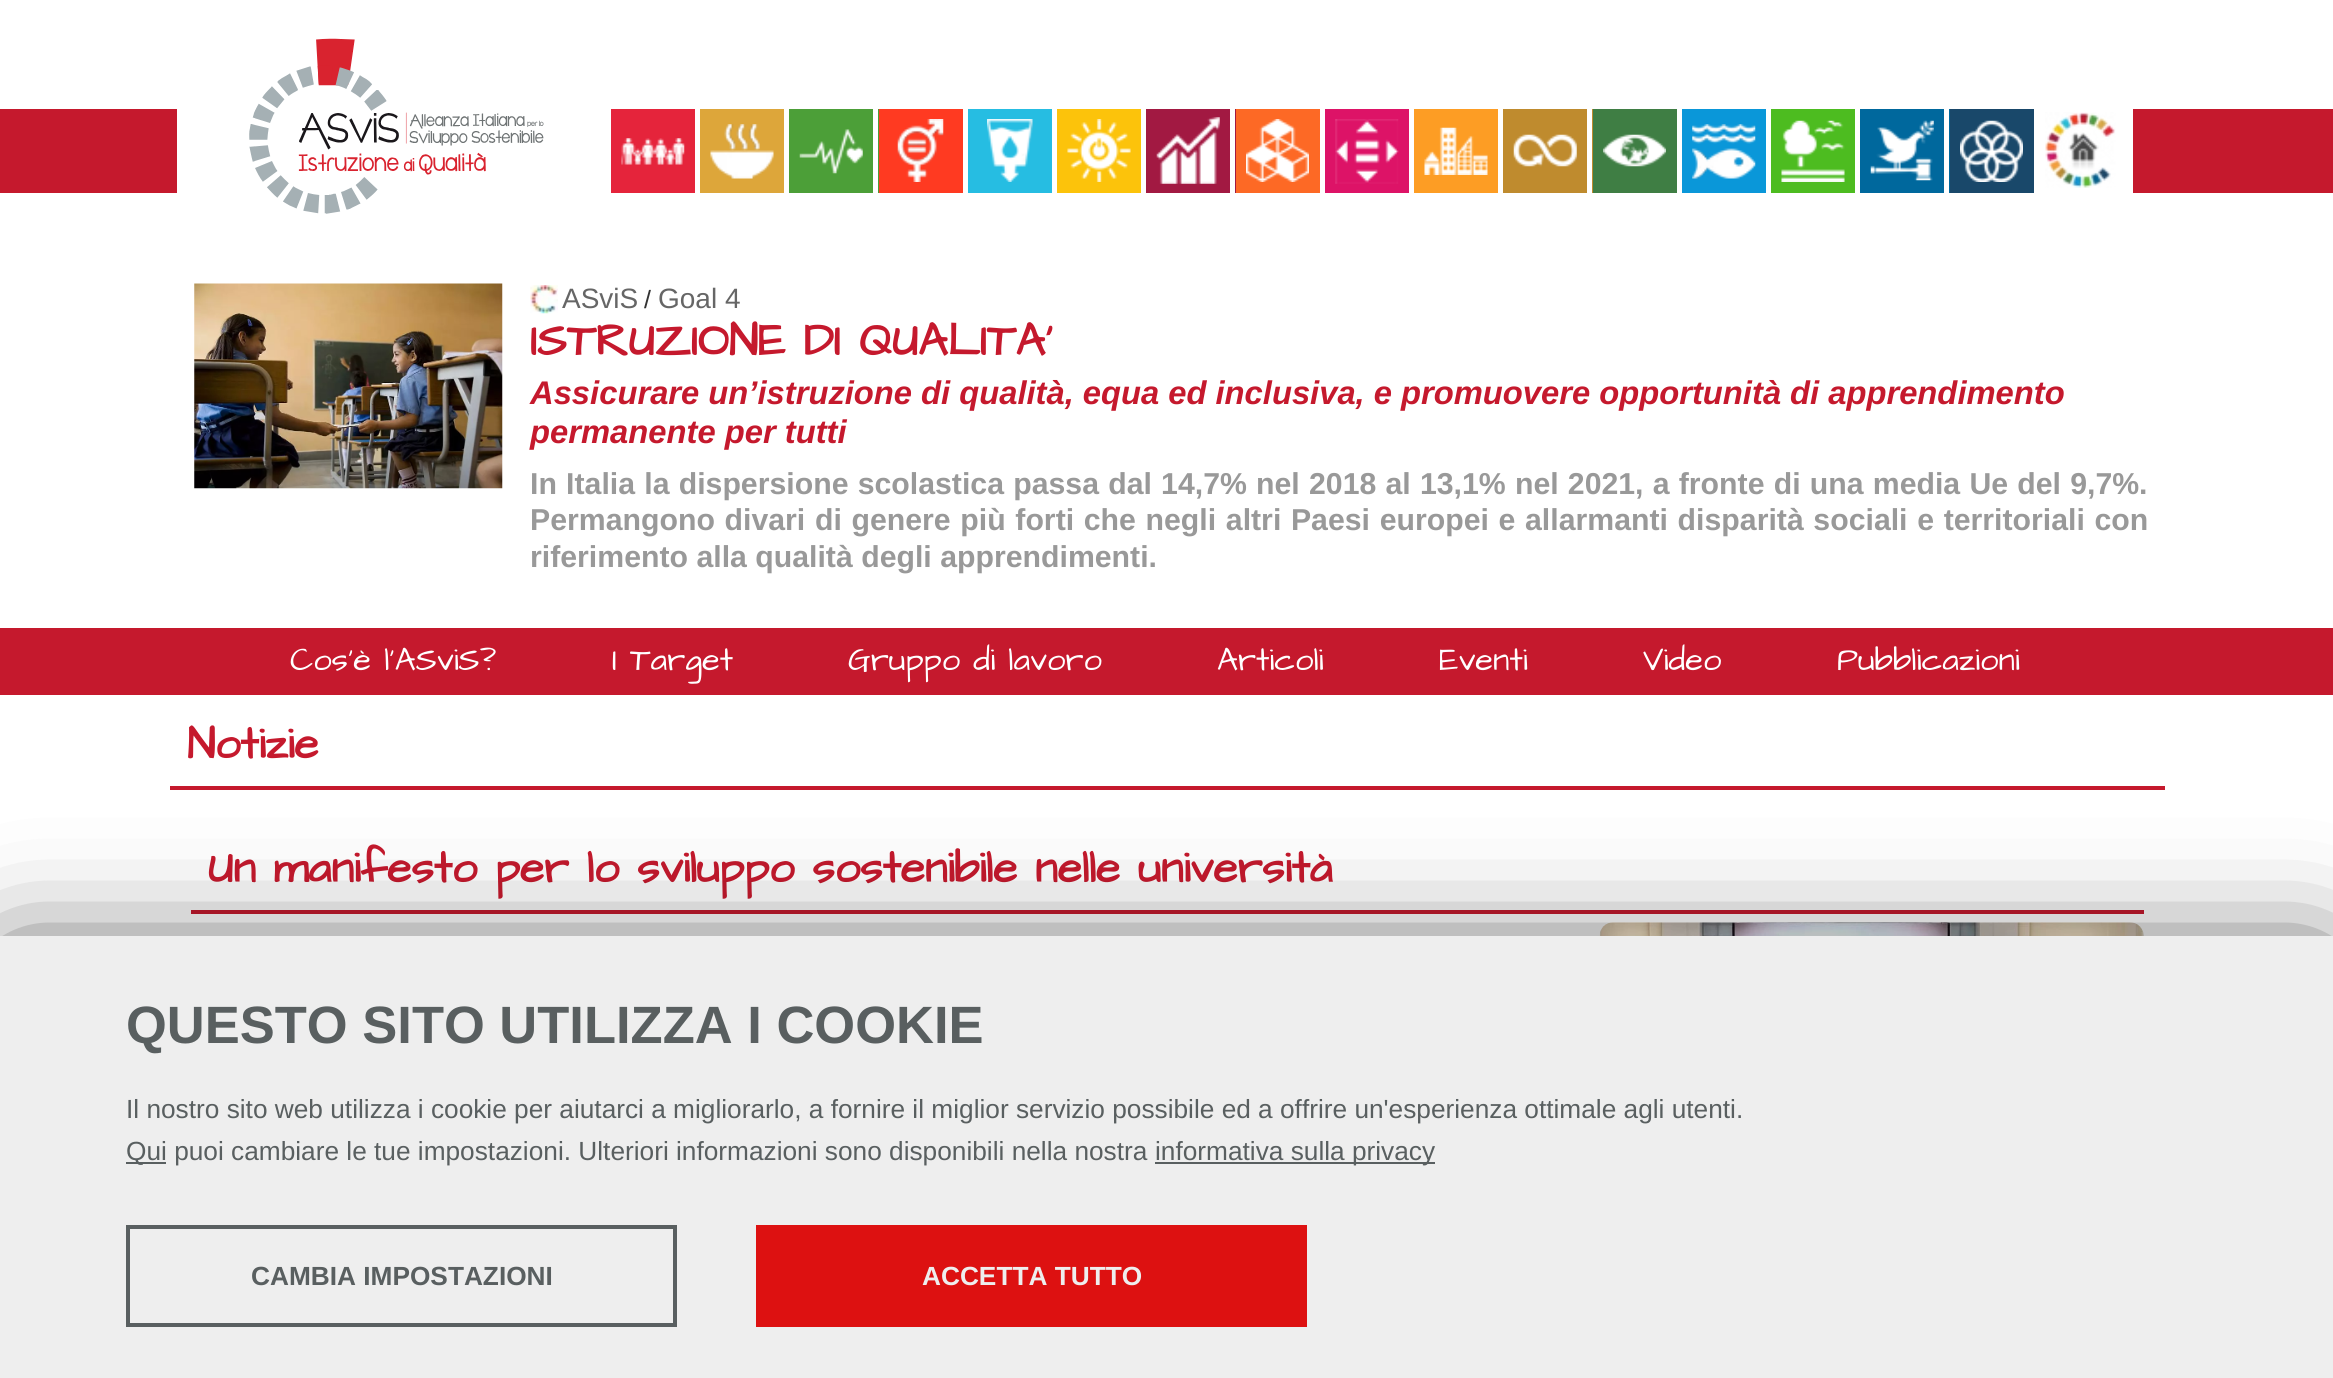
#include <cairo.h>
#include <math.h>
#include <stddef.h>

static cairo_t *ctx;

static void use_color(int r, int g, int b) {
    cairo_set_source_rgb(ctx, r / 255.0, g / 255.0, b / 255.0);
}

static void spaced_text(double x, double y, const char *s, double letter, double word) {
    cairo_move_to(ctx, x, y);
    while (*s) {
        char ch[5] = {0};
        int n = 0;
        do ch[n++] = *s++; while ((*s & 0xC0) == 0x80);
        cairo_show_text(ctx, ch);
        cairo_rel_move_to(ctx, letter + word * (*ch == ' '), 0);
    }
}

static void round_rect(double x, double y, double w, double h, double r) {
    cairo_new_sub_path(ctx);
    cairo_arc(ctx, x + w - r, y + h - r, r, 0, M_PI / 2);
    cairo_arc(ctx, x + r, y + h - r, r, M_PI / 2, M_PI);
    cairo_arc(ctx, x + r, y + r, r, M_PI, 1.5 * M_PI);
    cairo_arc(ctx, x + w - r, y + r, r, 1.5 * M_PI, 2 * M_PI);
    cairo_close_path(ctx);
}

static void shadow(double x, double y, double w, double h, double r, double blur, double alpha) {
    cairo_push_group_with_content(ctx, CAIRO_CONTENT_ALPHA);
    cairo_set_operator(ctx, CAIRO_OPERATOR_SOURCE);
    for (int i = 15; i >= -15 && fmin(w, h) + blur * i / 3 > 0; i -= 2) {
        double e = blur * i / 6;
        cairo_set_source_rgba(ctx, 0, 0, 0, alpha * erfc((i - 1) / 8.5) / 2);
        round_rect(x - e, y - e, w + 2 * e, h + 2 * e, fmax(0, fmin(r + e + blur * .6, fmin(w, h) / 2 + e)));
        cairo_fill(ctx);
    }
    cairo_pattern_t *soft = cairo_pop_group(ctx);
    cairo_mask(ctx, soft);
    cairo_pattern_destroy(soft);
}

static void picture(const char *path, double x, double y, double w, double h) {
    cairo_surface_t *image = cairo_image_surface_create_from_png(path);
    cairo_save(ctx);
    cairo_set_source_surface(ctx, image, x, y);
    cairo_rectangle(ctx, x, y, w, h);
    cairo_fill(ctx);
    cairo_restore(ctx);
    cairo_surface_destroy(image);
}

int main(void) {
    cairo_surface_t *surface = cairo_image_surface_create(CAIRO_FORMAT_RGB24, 2333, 1378);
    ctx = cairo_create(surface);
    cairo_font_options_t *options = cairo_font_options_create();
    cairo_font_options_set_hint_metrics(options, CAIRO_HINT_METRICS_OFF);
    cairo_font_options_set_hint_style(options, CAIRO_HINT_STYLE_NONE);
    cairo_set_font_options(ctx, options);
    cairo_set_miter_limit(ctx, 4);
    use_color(255, 255, 255);
    cairo_paint(ctx);
    use_color(197, 25, 45);
    cairo_rectangle(ctx, 0, 109, 2333, 84);
    cairo_fill(ctx);
    use_color(255, 255, 255);
    cairo_rectangle(ctx, 177, 109, 437, 84);
    cairo_fill(ctx);
    picture("img1.png", 249, 38, 295, 176);
    cairo_rectangle(ctx, 2034, 109, 99, 84);
    cairo_fill(ctx);
    use_color(229, 36, 59);
    cairo_rectangle(ctx, 611, 109, 84, 84);
    cairo_fill(ctx);
    picture("img2.png", 621, 138, 64, 27);
    use_color(255, 255, 255);
    cairo_rectangle(ctx, 695, 109, 5, 84);
    cairo_fill(ctx);
    use_color(221, 166, 58);
    cairo_rectangle(ctx, 700, 109, 84, 84);
    cairo_fill(ctx);
    picture("img3.png", 710, 124, 64, 55);
    use_color(255, 255, 255);
    cairo_rectangle(ctx, 784, 109, 5, 84);
    cairo_fill(ctx);
    use_color(76, 159, 56);
    cairo_rectangle(ctx, 789, 109, 90, 84);
    cairo_fill(ctx);
    picture("img4.png", 799, 129, 64, 45);
    use_color(255, 255, 255);
    cairo_rectangle(ctx, 873, 109, 5, 84);
    cairo_fill(ctx);
    use_color(255, 58, 33);
    cairo_rectangle(ctx, 879, 109, 84, 84);
    cairo_fill(ctx);
    picture("img5.png", 897, 119, 47, 63);
    use_color(255, 255, 255);
    cairo_rectangle(ctx, 963, 109, 5, 84);
    cairo_fill(ctx);
    use_color(38, 189, 226);
    cairo_rectangle(ctx, 968, 109, 84, 84);
    cairo_fill(ctx);
    picture("img6.png", 987, 119, 46, 63);
    use_color(255, 255, 255);
    cairo_rectangle(ctx, 1052, 109, 5, 84);
    cairo_fill(ctx);
    use_color(252, 195, 11);
    cairo_rectangle(ctx, 1057, 109, 84, 84);
    cairo_fill(ctx);
    picture("img7.png", 1067, 119, 64, 63);
    use_color(255, 255, 255);
    cairo_rectangle(ctx, 1141, 109, 5, 84);
    cairo_fill(ctx);
    use_color(162, 25, 66);
    cairo_rectangle(ctx, 1146, 109, 90, 84);
    cairo_fill(ctx);
    picture("img8.png", 1156, 117, 64, 67);
    use_color(255, 255, 255);
    cairo_rectangle(ctx, 1230, 109, 5, 84);
    cairo_fill(ctx);
    use_color(253, 105, 37);
    cairo_rectangle(ctx, 1236, 109, 84, 84);
    cairo_fill(ctx);
    picture("img9.png", 1246, 119, 63, 63);
    use_color(255, 255, 255);
    cairo_rectangle(ctx, 1320, 109, 5, 84);
    cairo_fill(ctx);
    use_color(221, 19, 103);
    cairo_rectangle(ctx, 1325, 109, 84, 84);
    cairo_fill(ctx);
    picture("img10.png", 1335, 119, 64, 65);
    use_color(255, 255, 255);
    cairo_rectangle(ctx, 1409, 109, 5, 84);
    cairo_fill(ctx);
    use_color(253, 157, 36);
    cairo_rectangle(ctx, 1414, 109, 84, 84);
    cairo_fill(ctx);
    picture("img11.png", 1424, 127, 64, 48);
    use_color(255, 255, 255);
    cairo_rectangle(ctx, 1498, 109, 5, 84);
    cairo_fill(ctx);
    use_color(191, 139, 46);
    cairo_rectangle(ctx, 1503, 109, 90, 84);
    cairo_fill(ctx);
    picture("img12.png", 1513, 134, 64, 33);
    use_color(255, 255, 255);
    cairo_rectangle(ctx, 1587, 109, 5, 84);
    cairo_fill(ctx);
    use_color(63, 126, 68);
    cairo_rectangle(ctx, 1593, 109, 84, 84);
    cairo_fill(ctx);
    picture("img13.png", 1603, 134, 63, 33);
    use_color(255, 255, 255);
    cairo_rectangle(ctx, 1677, 109, 5, 84);
    cairo_fill(ctx);
    use_color(10, 151, 217);
    cairo_rectangle(ctx, 1682, 109, 84, 84);
    cairo_fill(ctx);
    picture("img14.png", 1692, 124, 64, 55);
    use_color(255, 255, 255);
    cairo_rectangle(ctx, 1766, 109, 5, 84);
    cairo_fill(ctx);
    use_color(77, 188, 32);
    cairo_rectangle(ctx, 1771, 109, 84, 84);
    cairo_fill(ctx);
    picture("img15.png", 1781, 120, 64, 62);
    use_color(255, 255, 255);
    cairo_rectangle(ctx, 1855, 109, 5, 84);
    cairo_fill(ctx);
    use_color(0, 104, 157);
    cairo_rectangle(ctx, 1860, 109, 90, 84);
    cairo_fill(ctx);
    picture("img16.png", 1870, 120, 64, 61);
    use_color(255, 255, 255);
    cairo_rectangle(ctx, 1944, 109, 5, 84);
    cairo_fill(ctx);
    use_color(25, 72, 106);
    cairo_rectangle(ctx, 1950, 109, 84, 84);
    cairo_fill(ctx);
    picture("img17.png", 1960, 120, 63, 62);
    picture("img18.png", 2045, 112, 71, 76);
    picture("img19.png", 194, 283, 309, 206);
    picture("img20.png", 530, 285, 28, 29);
    cairo_select_font_face(ctx, "Liberation Sans", CAIRO_FONT_SLANT_NORMAL, CAIRO_FONT_WEIGHT_NORMAL);
    cairo_set_font_size(ctx, 28);
    use_color(102, 102, 102);
    cairo_move_to(ctx, 562, 308);
    cairo_show_text(ctx, "ASviS");
    cairo_set_font_size(ctx, 25);
    use_color(51, 51, 51);
    cairo_move_to(ctx, 644, 308);
    cairo_show_text(ctx, "/");
    cairo_set_font_size(ctx, 28);
    use_color(102, 102, 102);
    cairo_move_to(ctx, 658, 308);
    cairo_show_text(ctx, "Goal 4");
    cairo_select_font_face(ctx, "Architects Daughter", CAIRO_FONT_SLANT_NORMAL, CAIRO_FONT_WEIGHT_BOLD);
    cairo_set_font_size(ctx, 46.25);
    use_color(197, 25, 45);
    cairo_move_to(ctx, 530, 355);
    cairo_show_text(ctx, "ISTRUZIONE DI QUALITA'");
    cairo_select_font_face(ctx, "Liberation Sans", CAIRO_FONT_SLANT_ITALIC, CAIRO_FONT_WEIGHT_BOLD);
    cairo_set_font_size(ctx, 32.75);
    spaced_text(530, 404, "Assicurare un’istruzione di qualità, equa ed inclusiva, e promuovere opportunità di apprendimento", 0, -0.1);
    cairo_move_to(ctx, 530, 443);
    cairo_show_text(ctx, "permanente per tutti");
    cairo_select_font_face(ctx, "Liberation Sans", CAIRO_FONT_SLANT_NORMAL, CAIRO_FONT_WEIGHT_BOLD);
    cairo_set_font_size(ctx, 30.25);
    use_color(153, 153, 153);
    spaced_text(530, 494, "In Italia la dispersione scolastica passa dal 14,7% nel 2018 al 13,1% nel 2021, a fronte di una media Ue del 9,7%.", 0, 0.8);
    spaced_text(530, 530, "Permangono divari di genere più forti che negli altri Paesi europei e allarmanti disparità sociali e territoriali con", 0, 1.25);
    cairo_move_to(ctx, 530, 567);
    cairo_show_text(ctx, "riferimento alla qualità degli apprendimenti.");
    use_color(197, 25, 45);
    cairo_rectangle(ctx, 0, 628, 2333, 67);
    cairo_fill(ctx);
    cairo_select_font_face(ctx, "Architects Daughter", CAIRO_FONT_SLANT_NORMAL, CAIRO_FONT_WEIGHT_NORMAL);
    cairo_set_font_size(ctx, 32.75);
    use_color(255, 255, 255);
    cairo_move_to(ctx, 290, 670);
    cairo_show_text(ctx, "Cos'è l'ASviS?");
    cairo_move_to(ctx, 612, 670);
    cairo_show_text(ctx, "I Target");
    cairo_move_to(ctx, 848, 670);
    cairo_show_text(ctx, "Gruppo di lavoro");
    cairo_move_to(ctx, 1217, 670);
    cairo_show_text(ctx, "Articoli");
    cairo_move_to(ctx, 1439, 670);
    cairo_show_text(ctx, "Eventi");
    cairo_move_to(ctx, 1643, 670);
    cairo_show_text(ctx, "Video");
    cairo_move_to(ctx, 1837, 670);
    cairo_show_text(ctx, "Pubblicazioni");
    use_color(197, 25, 45);
    cairo_rectangle(ctx, 170, 786, 1995, 4);
    cairo_fill(ctx);
    cairo_select_font_face(ctx, "Architects Daughter", CAIRO_FONT_SLANT_NORMAL, CAIRO_FONT_WEIGHT_BOLD);
    cairo_set_font_size(ctx, 44.8);
    cairo_move_to(ctx, 187, 758);
    cairo_show_text(ctx, "Notizie");
    cairo_rectangle(ctx, 191, 910, 1953, 4);
    cairo_fill(ctx);
    cairo_move_to(ctx, 208, 882);
    cairo_show_text(ctx, "Un manifesto per lo sviluppo sostenibile nelle università");
    picture("img21.png", 1599, 922, 545, 14);
    use_color(0, 0, 0);
    shadow(12, 975, 2310, 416, 0, 63, 1);
    use_color(238, 238, 238);
    cairo_rectangle(ctx, 0, 936, 2333, 442);
    cairo_fill(ctx);
    cairo_select_font_face(ctx, "Liberation Sans", CAIRO_FONT_SLANT_NORMAL, CAIRO_FONT_WEIGHT_BOLD);
    cairo_set_font_size(ctx, 52.5);
    use_color(89, 95, 96);
    cairo_move_to(ctx, 126, 1043);
    cairo_show_text(ctx, "QUESTO SITO UTILIZZA I COOKIE");
    cairo_select_font_face(ctx, "Liberation Sans", CAIRO_FONT_SLANT_NORMAL, CAIRO_FONT_WEIGHT_NORMAL);
    cairo_set_font_size(ctx, 26.25);
    cairo_move_to(ctx, 126, 1118);
    cairo_show_text(ctx, "Il nostro sito web utilizza i cookie per aiutarci a migliorarlo, a fornire il miglior servizio possibile ed a offrire un'esperienza ottimale agli utenti.");
    cairo_rectangle(ctx, 126, 1162, 40, 2);
    cairo_fill(ctx);
    cairo_move_to(ctx, 126, 1160);
    cairo_show_text(ctx, "Qui puoi cambiare le tue impostazioni. Ulteriori informazioni sono disponibili nella nostra");
    cairo_rectangle(ctx, 1155, 1162, 280, 2);
    cairo_fill(ctx);
    cairo_move_to(ctx, 1155, 1160);
    cairo_show_text(ctx, "informativa sulla privacy");
    cairo_rectangle(ctx, 128, 1227, 547, 98);
    cairo_set_line_width(ctx, 4);
    cairo_stroke(ctx);
    cairo_select_font_face(ctx, "Liberation Sans", CAIRO_FONT_SLANT_NORMAL, CAIRO_FONT_WEIGHT_BOLD);
    cairo_move_to(ctx, 251, 1285);
    cairo_show_text(ctx, "CAMBIA IMPOSTAZIONI");
    use_color(221, 17, 17);
    cairo_rectangle(ctx, 756, 1225, 551, 102);
    cairo_fill(ctx);
    use_color(238, 238, 238);
    cairo_move_to(ctx, 922, 1285);
    cairo_show_text(ctx, "ACCETTA TUTTO");
    cairo_surface_write_to_png(surface, "result.png");
    cairo_font_options_destroy(options);
    cairo_destroy(ctx);
    cairo_surface_destroy(surface);
    return 0;
}
